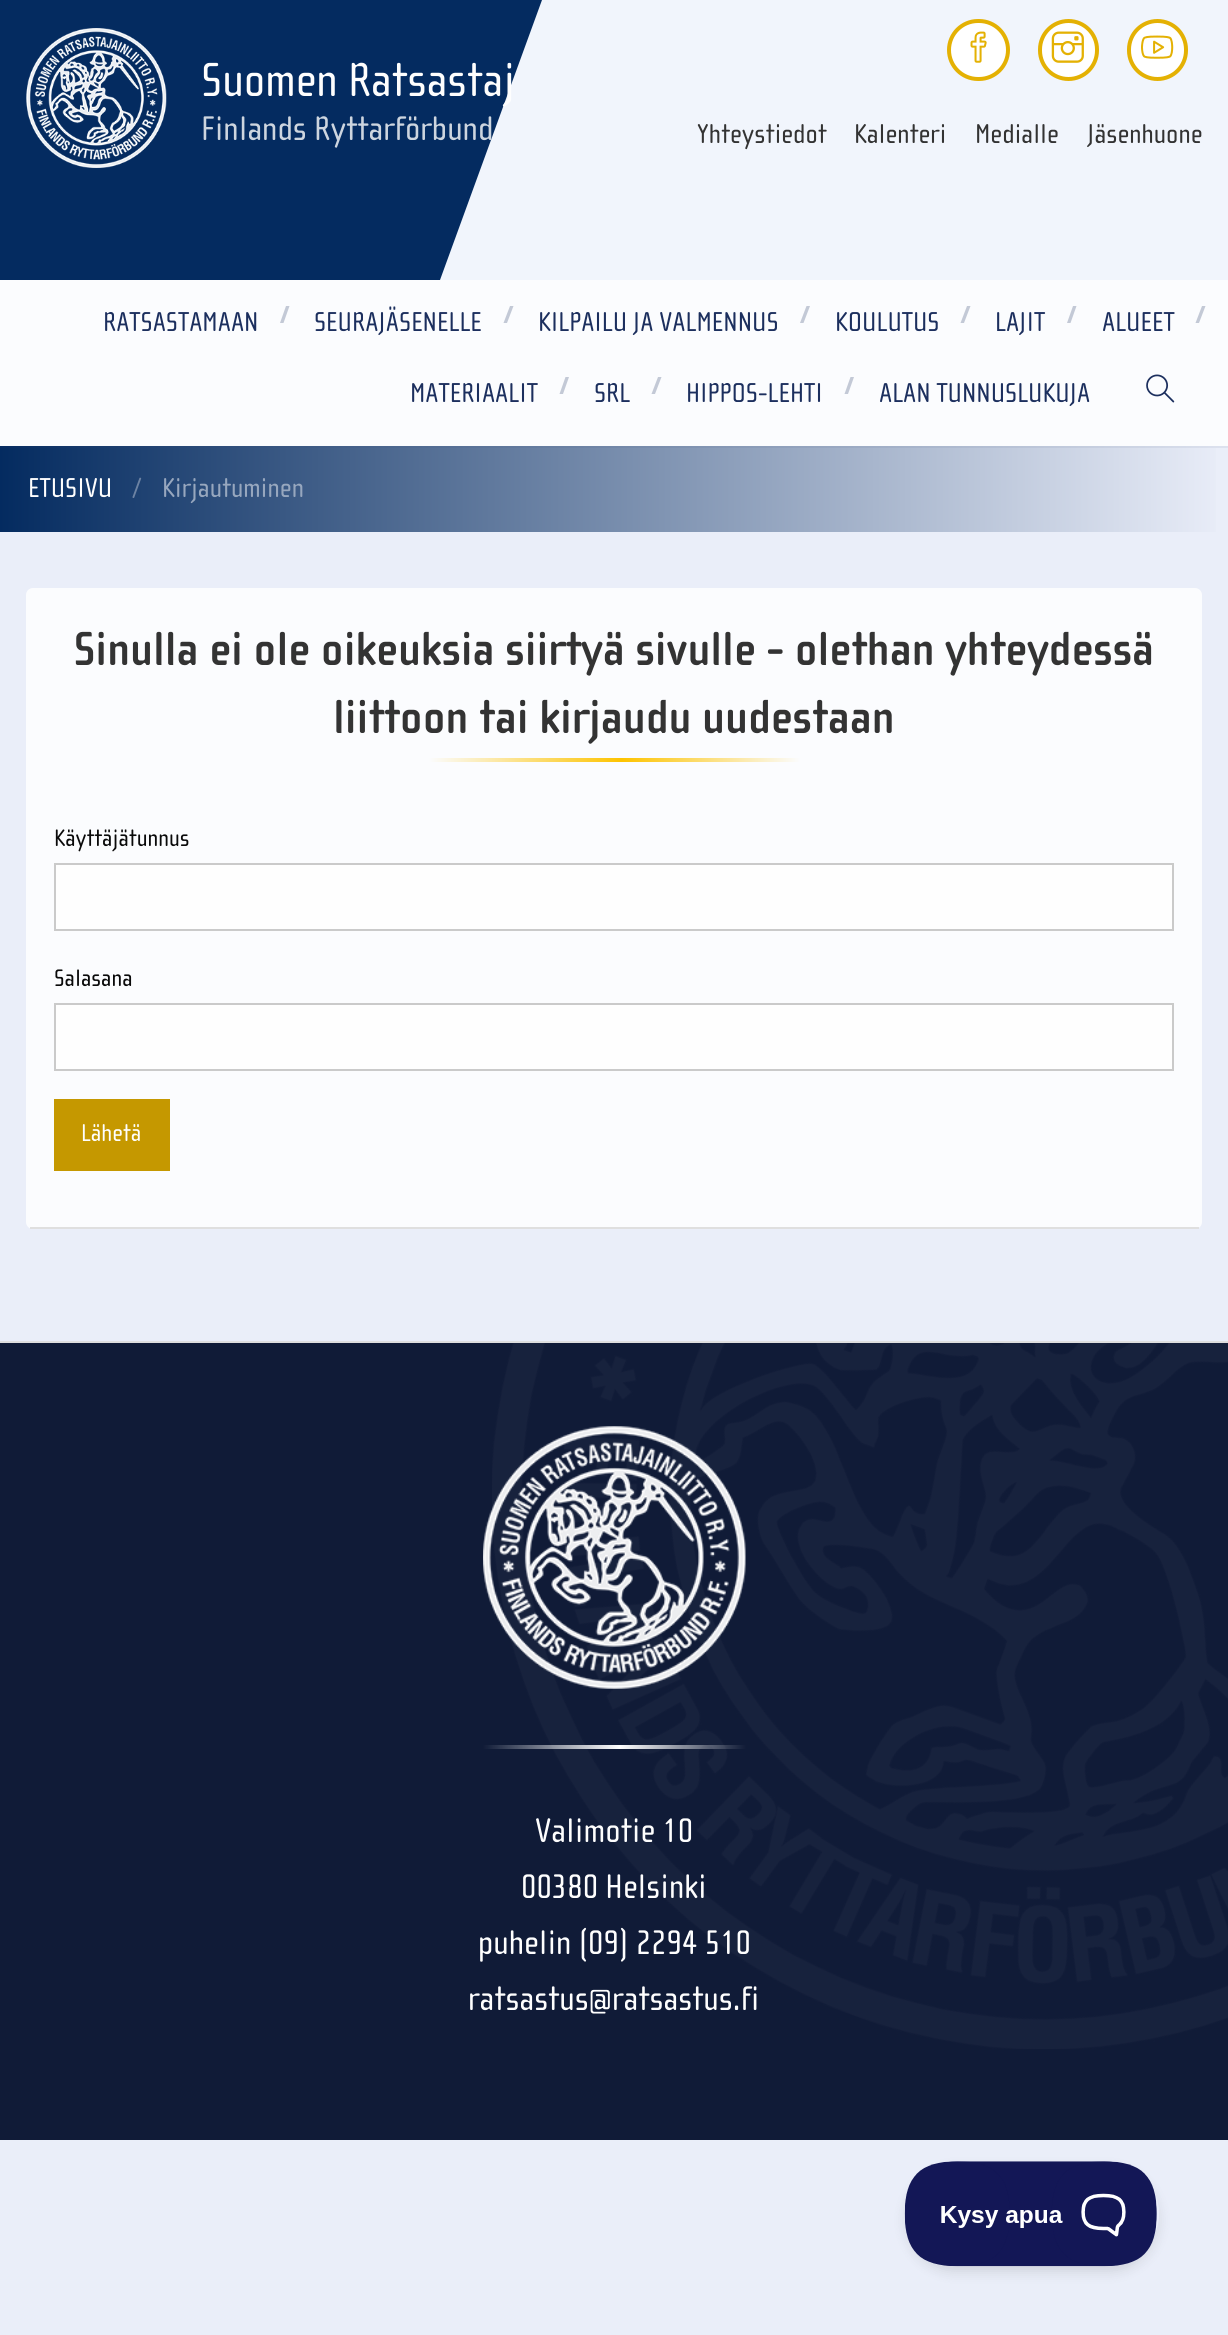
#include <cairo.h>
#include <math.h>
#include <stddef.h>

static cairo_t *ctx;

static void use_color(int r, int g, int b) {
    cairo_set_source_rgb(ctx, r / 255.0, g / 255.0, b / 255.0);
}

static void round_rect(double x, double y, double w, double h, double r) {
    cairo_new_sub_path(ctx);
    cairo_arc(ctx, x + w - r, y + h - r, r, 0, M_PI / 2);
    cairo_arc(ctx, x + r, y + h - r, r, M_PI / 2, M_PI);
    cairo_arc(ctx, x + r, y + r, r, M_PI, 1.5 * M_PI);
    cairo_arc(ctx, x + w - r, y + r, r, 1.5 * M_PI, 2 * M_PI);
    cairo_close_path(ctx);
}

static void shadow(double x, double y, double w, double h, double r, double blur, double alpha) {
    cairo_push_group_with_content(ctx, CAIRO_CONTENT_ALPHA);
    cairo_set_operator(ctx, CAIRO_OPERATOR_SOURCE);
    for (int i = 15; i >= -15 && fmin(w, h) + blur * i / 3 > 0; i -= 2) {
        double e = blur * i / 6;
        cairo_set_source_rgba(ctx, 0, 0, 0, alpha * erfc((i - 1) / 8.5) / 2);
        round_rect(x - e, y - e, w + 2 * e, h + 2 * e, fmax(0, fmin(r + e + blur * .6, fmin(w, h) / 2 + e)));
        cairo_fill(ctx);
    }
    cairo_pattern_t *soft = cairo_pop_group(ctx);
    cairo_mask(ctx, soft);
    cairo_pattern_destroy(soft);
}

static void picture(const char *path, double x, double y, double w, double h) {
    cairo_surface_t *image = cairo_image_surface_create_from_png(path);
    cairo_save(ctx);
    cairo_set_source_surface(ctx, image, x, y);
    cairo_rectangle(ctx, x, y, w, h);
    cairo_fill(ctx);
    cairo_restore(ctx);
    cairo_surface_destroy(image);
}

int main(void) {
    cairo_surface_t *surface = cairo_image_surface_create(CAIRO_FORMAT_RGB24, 1228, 2335);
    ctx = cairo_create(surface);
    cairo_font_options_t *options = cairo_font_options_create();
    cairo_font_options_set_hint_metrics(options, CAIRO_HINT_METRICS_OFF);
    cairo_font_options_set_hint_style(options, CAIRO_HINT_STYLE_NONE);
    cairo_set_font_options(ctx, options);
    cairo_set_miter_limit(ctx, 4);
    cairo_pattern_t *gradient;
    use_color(234, 238, 249);
    cairo_paint(ctx);
    use_color(241, 245, 252);
    cairo_rectangle(ctx, 440, 0, 788, 280);
    cairo_fill(ctx);
    use_color(4, 43, 96);
    cairo_new_path(ctx);
    cairo_move_to(ctx, -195, 0);
    cairo_line_to(ctx, 542, 0);
    cairo_line_to(ctx, 440, 280);
    cairo_line_to(ctx, -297, 280);
    cairo_close_path(ctx);
    cairo_fill(ctx);
    picture("img1.png", 26, 28, 141, 140);
    cairo_select_font_face(ctx, "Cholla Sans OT", CAIRO_FONT_SLANT_NORMAL, CAIRO_FONT_WEIGHT_NORMAL);
    cairo_set_font_size(ctx, 49);
    use_color(254, 254, 254);
    cairo_move_to(ctx, 201, 96);
    cairo_show_text(ctx, "Suomen Ratsastaj");
    cairo_set_font_size(ctx, 35);
    use_color(205, 213, 223);
    cairo_move_to(ctx, 201, 140);
    cairo_show_text(ctx, "Finlands Ryttarförbund");
    use_color(255, 255, 255);
    round_rect(949, 21, 59, 58, 29);
    cairo_fill_preserve(ctx);
    use_color(228, 177, 3);
    cairo_set_line_width(ctx, 4);
    cairo_stroke(ctx);
    picture("img2.png", 970, 31, 17, 32);
    use_color(255, 255, 255);
    round_rect(1040, 21, 57, 58, 28.5);
    cairo_fill_preserve(ctx);
    use_color(228, 177, 3);
    cairo_stroke(ctx);
    picture("img3.png", 1051, 31, 33, 32);
    use_color(255, 255, 255);
    round_rect(1129, 21, 57, 58, 28.5);
    cairo_fill_preserve(ctx);
    use_color(228, 177, 3);
    cairo_stroke(ctx);
    picture("img4.png", 1141, 35, 33, 24);
    cairo_set_font_size(ctx, 28);
    use_color(51, 51, 51);
    cairo_move_to(ctx, 697, 143);
    cairo_show_text(ctx, "Yhteystiedot");
    cairo_move_to(ctx, 854, 143);
    cairo_show_text(ctx, "Kalenteri");
    cairo_move_to(ctx, 975, 143);
    cairo_show_text(ctx, "Medialle");
    cairo_move_to(ctx, 1087, 143);
    cairo_show_text(ctx, "Jäsenhuone");
    use_color(251, 252, 254);
    cairo_rectangle(ctx, 0, 280, 1228, 166);
    cairo_fill(ctx);
    use_color(28, 47, 94);
    cairo_move_to(ctx, 103, 331);
    cairo_show_text(ctx, "RATSASTAMAAN");
    use_color(195, 201, 214);
    cairo_new_path(ctx);
    cairo_move_to(ctx, 286, 306);
    cairo_line_to(ctx, 289.5, 306);
    cairo_line_to(ctx, 283.5, 323);
    cairo_line_to(ctx, 280, 323);
    cairo_close_path(ctx);
    cairo_fill(ctx);
    use_color(28, 47, 94);
    cairo_move_to(ctx, 314, 331);
    cairo_show_text(ctx, "SEURAJÄSENELLE");
    use_color(195, 201, 214);
    cairo_new_path(ctx);
    cairo_move_to(ctx, 510, 306);
    cairo_line_to(ctx, 513.5, 306);
    cairo_line_to(ctx, 507, 323);
    cairo_line_to(ctx, 503.5, 323);
    cairo_close_path(ctx);
    cairo_fill(ctx);
    use_color(28, 47, 94);
    cairo_move_to(ctx, 538, 331);
    cairo_show_text(ctx, "KILPAILU JA VALMENNUS");
    use_color(195, 201, 214);
    cairo_new_path(ctx);
    cairo_move_to(ctx, 806.5, 306);
    cairo_line_to(ctx, 810, 306);
    cairo_line_to(ctx, 803.5, 323);
    cairo_line_to(ctx, 800, 323);
    cairo_close_path(ctx);
    cairo_fill(ctx);
    use_color(28, 47, 94);
    cairo_move_to(ctx, 835, 331);
    cairo_show_text(ctx, "KOULUTUS");
    use_color(195, 201, 214);
    cairo_new_path(ctx);
    cairo_move_to(ctx, 967, 306);
    cairo_line_to(ctx, 970.5, 306);
    cairo_line_to(ctx, 964, 323);
    cairo_line_to(ctx, 960.5, 323);
    cairo_close_path(ctx);
    cairo_fill(ctx);
    use_color(28, 47, 94);
    cairo_move_to(ctx, 995, 331);
    cairo_show_text(ctx, "LAJIT");
    use_color(195, 201, 214);
    cairo_new_path(ctx);
    cairo_move_to(ctx, 1073, 306);
    cairo_line_to(ctx, 1076.5, 306);
    cairo_line_to(ctx, 1070.5, 323);
    cairo_line_to(ctx, 1067, 323);
    cairo_close_path(ctx);
    cairo_fill(ctx);
    use_color(28, 47, 94);
    cairo_move_to(ctx, 1102, 331);
    cairo_show_text(ctx, "ALUEET");
    use_color(195, 201, 214);
    cairo_new_path(ctx);
    cairo_move_to(ctx, 1202, 306);
    cairo_line_to(ctx, 1205.5, 306);
    cairo_line_to(ctx, 1199, 323);
    cairo_line_to(ctx, 1195.5, 323);
    cairo_close_path(ctx);
    cairo_fill(ctx);
    use_color(28, 47, 94);
    cairo_move_to(ctx, 410, 402);
    cairo_show_text(ctx, "MATERIAALIT");
    use_color(195, 201, 214);
    cairo_new_path(ctx);
    cairo_move_to(ctx, 565.5, 377);
    cairo_line_to(ctx, 569, 377);
    cairo_line_to(ctx, 563, 394);
    cairo_line_to(ctx, 559.5, 394);
    cairo_close_path(ctx);
    cairo_fill(ctx);
    use_color(28, 47, 94);
    cairo_move_to(ctx, 594, 402);
    cairo_show_text(ctx, "SRL");
    use_color(195, 201, 214);
    cairo_new_path(ctx);
    cairo_move_to(ctx, 658, 377);
    cairo_line_to(ctx, 661.5, 377);
    cairo_line_to(ctx, 655, 394);
    cairo_line_to(ctx, 651.5, 394);
    cairo_close_path(ctx);
    cairo_fill(ctx);
    use_color(28, 47, 94);
    cairo_move_to(ctx, 686, 402);
    cairo_show_text(ctx, "HIPPOS-LEHTI");
    use_color(195, 201, 214);
    cairo_new_path(ctx);
    cairo_move_to(ctx, 850.5, 377);
    cairo_line_to(ctx, 854, 377);
    cairo_line_to(ctx, 848, 394);
    cairo_line_to(ctx, 844.5, 394);
    cairo_close_path(ctx);
    cairo_fill(ctx);
    use_color(28, 47, 94);
    cairo_move_to(ctx, 879, 402);
    cairo_show_text(ctx, "ALAN TUNNUSLUKUJA");
    picture("img5.png", 1146, 374, 29, 29);
    gradient = cairo_pattern_create_linear(0, 490, 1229, 490);
    cairo_pattern_add_color_stop_rgba(gradient, 0, 0.016, 0.169, 0.376, 1);
    cairo_pattern_add_color_stop_rgba(gradient, 1, 0.918, 0.933, 0.976, 1);
    cairo_set_source(ctx, gradient);
    cairo_pattern_destroy(gradient);
    cairo_rectangle(ctx, 0, 448, 1216, 84);
    cairo_fill(ctx);
    gradient = cairo_pattern_create_linear(0, 490, 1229, 490);
    cairo_pattern_add_color_stop_rgba(gradient, 0, 0.027, 0.173, 0.38, 1);
    cairo_pattern_add_color_stop_rgba(gradient, 1, 0.867, 0.886, 0.937, 1);
    cairo_set_source(ctx, gradient);
    cairo_pattern_destroy(gradient);
    cairo_rectangle(ctx, 0, 446, 1228, 2);
    cairo_fill(ctx);
    use_color(254, 254, 254);
    cairo_move_to(ctx, 28, 497);
    cairo_show_text(ctx, "ETUSIVU");
    use_color(109, 131, 163);
    cairo_move_to(ctx, 133, 497);
    cairo_show_text(ctx, "/");
    use_color(151, 167, 190);
    cairo_move_to(ctx, 162, 497);
    cairo_show_text(ctx, "Kirjautuminen");
    cairo_set_source_rgba(ctx, 1, 1, 1, 0.8);
    round_rect(26, 588, 1176, 641, 7);
    cairo_fill(ctx);
    use_color(223, 223, 223);
    cairo_rectangle(ctx, 30, 1227, 1169, 2);
    cairo_fill(ctx);
    cairo_select_font_face(ctx, "Cholla Sans OT", CAIRO_FONT_SLANT_NORMAL, CAIRO_FONT_WEIGHT_BOLD);
    cairo_set_font_size(ctx, 49);
    use_color(51, 51, 51);
    cairo_move_to(ctx, 74, 665);
    cairo_show_text(ctx, "Sinulla ei ole oikeuksia siirtyä sivulle - olethan yhteydessä");
    cairo_move_to(ctx, 333, 733);
    cairo_show_text(ctx, "liittoon tai kirjaudu uudestaan");
    gradient = cairo_pattern_create_linear(429, 760, 800, 760);
    cairo_pattern_add_color_stop_rgba(gradient, 0, 0.984, 0.988, 0.996, 1);
    cairo_pattern_add_color_stop_rgba(gradient, 0.52, 0.992, 0.765, 0, 1);
    cairo_pattern_add_color_stop_rgba(gradient, 1, 0.984, 0.988, 0.996, 1);
    cairo_set_source(ctx, gradient);
    cairo_pattern_destroy(gradient);
    round_rect(429, 758, 371, 4, 2);
    cairo_fill(ctx);
    cairo_select_font_face(ctx, "Cholla Sans OT", CAIRO_FONT_SLANT_NORMAL, CAIRO_FONT_WEIGHT_NORMAL);
    cairo_set_font_size(ctx, 24.5);
    use_color(10, 10, 10);
    cairo_move_to(ctx, 54, 846);
    cairo_show_text(ctx, "Käyttäjätunnus");
    use_color(254, 254, 254);
    cairo_rectangle(ctx, 55, 864, 1118, 66);
    cairo_fill_preserve(ctx);
    use_color(202, 202, 202);
    cairo_set_line_width(ctx, 2);
    cairo_stroke(ctx);
    use_color(10, 10, 10);
    cairo_move_to(ctx, 54, 986);
    cairo_show_text(ctx, "Salasana");
    use_color(254, 254, 254);
    cairo_rectangle(ctx, 55, 1004, 1118, 66);
    cairo_fill_preserve(ctx);
    use_color(202, 202, 202);
    cairo_stroke(ctx);
    use_color(197, 152, 0);
    cairo_rectangle(ctx, 54, 1099, 116, 72);
    cairo_fill(ctx);
    cairo_set_font_size(ctx, 25);
    use_color(254, 254, 254);
    cairo_move_to(ctx, 81, 1141);
    cairo_show_text(ctx, "Lähetä");
    use_color(16, 27, 55);
    cairo_rectangle(ctx, 0, 1343, 1228, 797);
    cairo_fill(ctx);
    use_color(223, 223, 223);
    cairo_rectangle(ctx, 0, 1341, 1228, 2);
    cairo_fill(ctx);
    picture("img6.png", 492, 1343, 736, 706);
    picture("img7.png", 483, 1426, 263, 263);
    gradient = cairo_pattern_create_linear(483, 1747, 746, 1747);
    cairo_pattern_add_color_stop_rgba(gradient, 0, 1, 1, 1, 0);
    cairo_pattern_add_color_stop_rgba(gradient, 0.52, 1, 1, 1, 1);
    cairo_pattern_add_color_stop_rgba(gradient, 1, 1, 1, 1, 0);
    cairo_set_source(ctx, gradient);
    cairo_pattern_destroy(gradient);
    cairo_rectangle(ctx, 483, 1745, 263, 4);
    cairo_fill(ctx);
    cairo_set_font_size(ctx, 35);
    use_color(254, 254, 254);
    cairo_move_to(ctx, 535, 1842);
    cairo_show_text(ctx, "Valimotie 10");
    cairo_move_to(ctx, 521, 1898);
    cairo_show_text(ctx, "00380 Helsinki");
    cairo_move_to(ctx, 478, 1954);
    cairo_show_text(ctx, "puhelin (09) 2294 510");
    cairo_move_to(ctx, 468, 2010);
    cairo_show_text(ctx, "ratsastus@ratsastus.fi");
    cairo_save(ctx);
    cairo_set_fill_rule(ctx, CAIRO_FILL_RULE_EVEN_ODD);
    cairo_new_path(ctx);
    cairo_move_to(ctx, 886, 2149);
    cairo_line_to(ctx, 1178, 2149);
    cairo_line_to(ctx, 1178, 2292);
    cairo_line_to(ctx, 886, 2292);
    cairo_close_path(ctx);
    cairo_move_to(ctx, 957.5, 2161);
    cairo_line_to(ctx, 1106.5, 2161);
    cairo_curve_to(ctx, 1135.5, 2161, 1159, 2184.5, 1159, 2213.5);
    cairo_curve_to(ctx, 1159, 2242.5, 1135.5, 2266, 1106.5, 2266);
    cairo_line_to(ctx, 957.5, 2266);
    cairo_curve_to(ctx, 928.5, 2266, 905, 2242.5, 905, 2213.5);
    cairo_curve_to(ctx, 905, 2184.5, 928.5, 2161, 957.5, 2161);
    cairo_close_path(ctx);
    cairo_clip(ctx);
    use_color(0, 0, 0);
    shadow(905, 2168, 254, 105, 52.5, 6, 0.1);
    cairo_restore(ctx);
    picture("img8.png", 904, 2161, 253, 106);
    cairo_surface_write_to_png(surface, "result.png");
    cairo_font_options_destroy(options);
    cairo_destroy(ctx);
    cairo_surface_destroy(surface);
    return 0;
}
